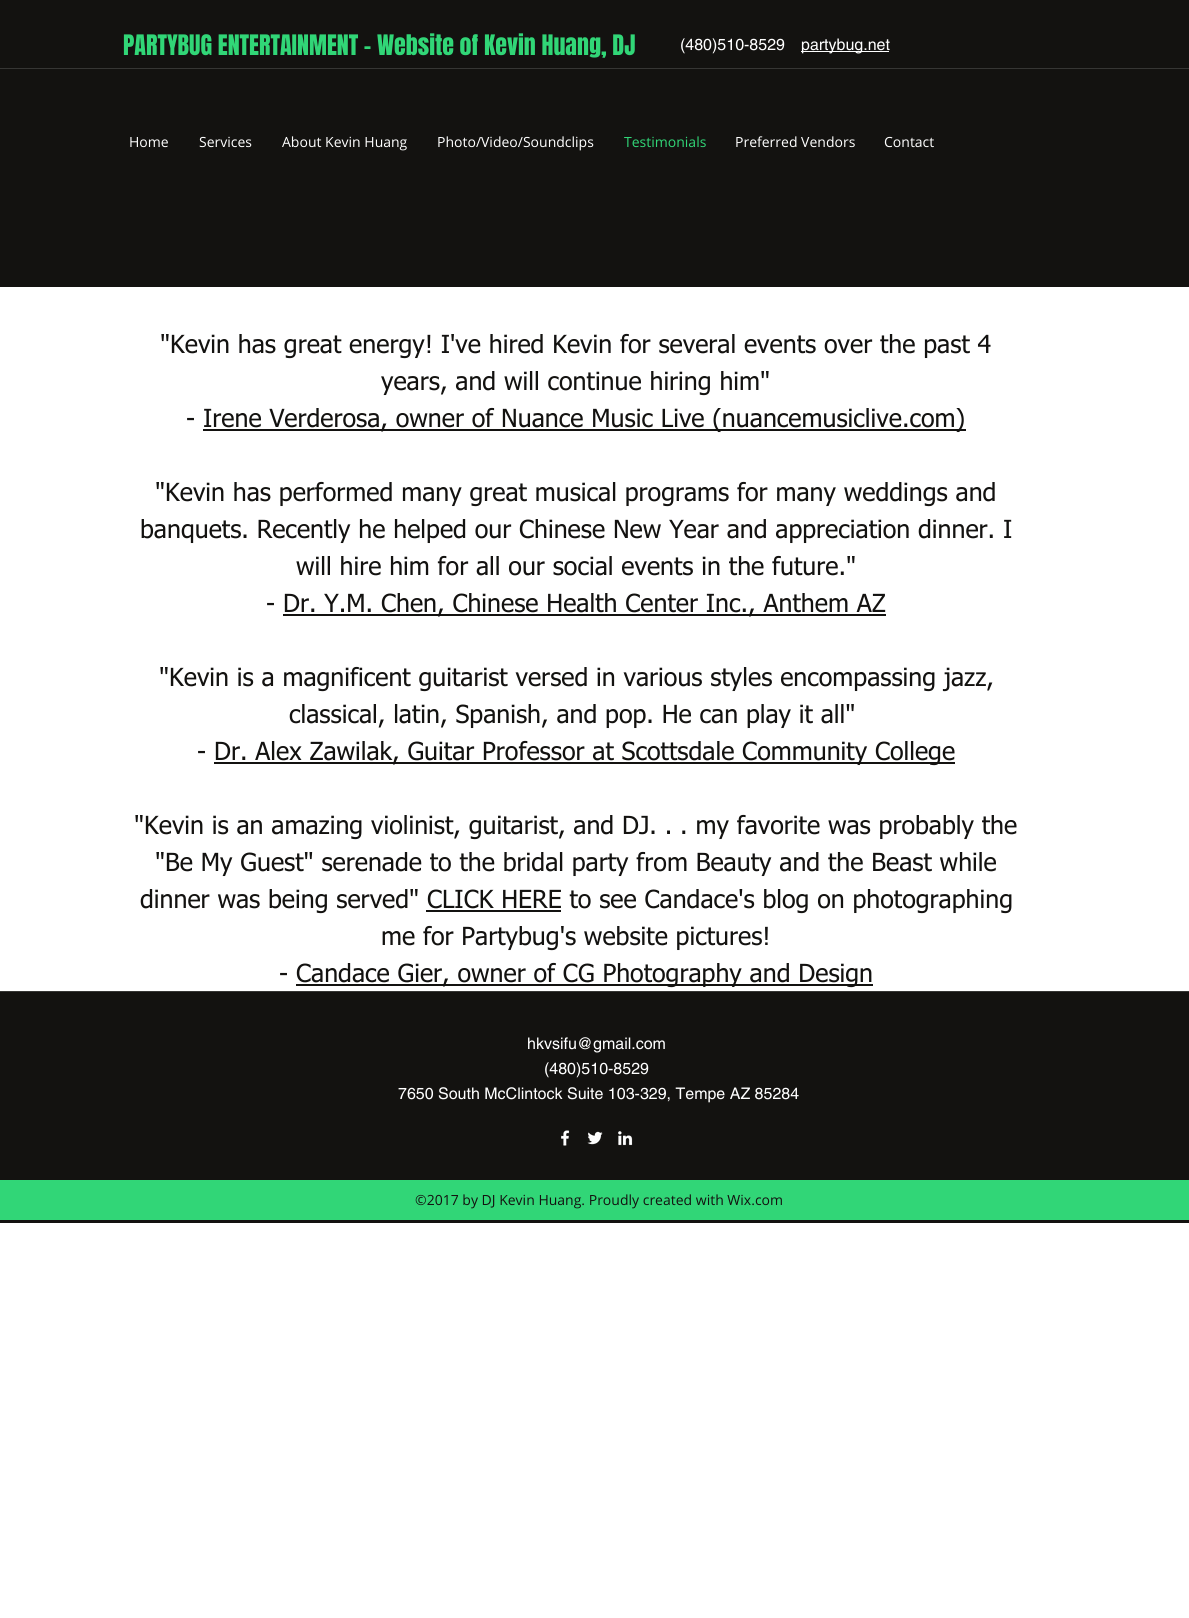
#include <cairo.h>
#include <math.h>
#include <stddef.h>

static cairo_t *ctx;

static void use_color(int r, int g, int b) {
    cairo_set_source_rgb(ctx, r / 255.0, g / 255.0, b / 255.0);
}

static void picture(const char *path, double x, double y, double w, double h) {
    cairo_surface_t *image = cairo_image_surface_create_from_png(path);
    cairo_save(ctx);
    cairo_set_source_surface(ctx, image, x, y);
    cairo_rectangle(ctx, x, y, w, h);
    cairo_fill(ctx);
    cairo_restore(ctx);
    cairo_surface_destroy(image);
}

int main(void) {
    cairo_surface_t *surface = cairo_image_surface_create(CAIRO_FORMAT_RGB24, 1189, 1618);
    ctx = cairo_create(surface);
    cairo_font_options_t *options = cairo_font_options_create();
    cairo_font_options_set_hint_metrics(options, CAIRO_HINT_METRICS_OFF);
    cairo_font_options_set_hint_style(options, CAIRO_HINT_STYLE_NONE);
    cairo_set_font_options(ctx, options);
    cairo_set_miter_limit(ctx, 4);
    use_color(255, 255, 255);
    cairo_paint(ctx);
    use_color(19, 18, 16);
    cairo_rectangle(ctx, 0, 0, 1189, 287);
    cairo_fill(ctx);
    cairo_select_font_face(ctx, "Anton", CAIRO_FONT_SLANT_NORMAL, CAIRO_FONT_WEIGHT_NORMAL);
    cairo_set_font_size(ctx, 24);
    use_color(49, 214, 119);
    cairo_move_to(ctx, 123, 55);
    cairo_show_text(ctx, "PARTYBUG ENTERTAINMENT - Website of Kevin Huang, DJ");
    cairo_select_font_face(ctx, "helvetica", CAIRO_FONT_SLANT_NORMAL, CAIRO_FONT_WEIGHT_NORMAL);
    cairo_set_font_size(ctx, 16);
    use_color(255, 255, 255);
    cairo_move_to(ctx, 680, 50);
    cairo_show_text(ctx, "(480)510-8529");
    cairo_rectangle(ctx, 801, 51, 88, 1);
    cairo_fill(ctx);
    cairo_move_to(ctx, 801, 50);
    cairo_show_text(ctx, "partybug.net");
    cairo_select_font_face(ctx, "Open Sans", CAIRO_FONT_SLANT_NORMAL, CAIRO_FONT_WEIGHT_NORMAL);
    cairo_set_font_size(ctx, 14);
    cairo_move_to(ctx, 129, 147);
    cairo_show_text(ctx, "Home");
    cairo_move_to(ctx, 199, 147);
    cairo_show_text(ctx, "Services");
    cairo_move_to(ctx, 282, 147);
    cairo_show_text(ctx, "About Kevin Huang");
    cairo_move_to(ctx, 437, 147);
    cairo_show_text(ctx, "Photo/Video/Soundclips");
    use_color(49, 214, 119);
    cairo_move_to(ctx, 624, 147);
    cairo_show_text(ctx, "Testimonials");
    use_color(255, 255, 255);
    cairo_move_to(ctx, 735, 147);
    cairo_show_text(ctx, "Preferred Vendors");
    cairo_move_to(ctx, 884, 147);
    cairo_show_text(ctx, "Contact");
    use_color(54, 54, 52);
    cairo_rectangle(ctx, 0, 68, 1189, 1);
    cairo_fill(ctx);
    cairo_select_font_face(ctx, "tahoma", CAIRO_FONT_SLANT_NORMAL, CAIRO_FONT_WEIGHT_NORMAL);
    cairo_set_font_size(ctx, 25);
    use_color(19, 18, 16);
    cairo_move_to(ctx, 160, 353);
    cairo_show_text(ctx, "\"Kevin has great energy! I've hired Kevin for several events over the past 4");
    cairo_move_to(ctx, 381, 390);
    cairo_show_text(ctx, "years, and will continue hiring him\"");
    cairo_move_to(ctx, 186, 427);
    cairo_show_text(ctx, "-");
    cairo_rectangle(ctx, 203, 429, 763, 2);
    cairo_fill(ctx);
    cairo_move_to(ctx, 203, 427);
    cairo_show_text(ctx, "Irene Verderosa, owner of Nuance Music Live (nuancemusiclive.com)");
    cairo_move_to(ctx, 155, 501);
    cairo_show_text(ctx, "\"Kevin has performed many great musical programs for many weddings and");
    cairo_move_to(ctx, 140, 538);
    cairo_show_text(ctx, "banquets. Recently he helped our Chinese New Year and appreciation dinner. I");
    cairo_move_to(ctx, 296, 575);
    cairo_show_text(ctx, "will hire him for all our social events in the future.\"");
    cairo_move_to(ctx, 266, 612);
    cairo_show_text(ctx, "-");
    cairo_rectangle(ctx, 283, 614, 603, 2);
    cairo_fill(ctx);
    cairo_move_to(ctx, 283, 612);
    cairo_show_text(ctx, "Dr. Y.M. Chen, Chinese Health Center Inc., Anthem AZ");
    cairo_move_to(ctx, 159, 686);
    cairo_show_text(ctx, "\"Kevin is a magnificent guitarist versed in various styles encompassing jazz,");
    cairo_move_to(ctx, 289, 723);
    cairo_show_text(ctx, "classical, latin, Spanish, and pop. He can play it all\"");
    cairo_move_to(ctx, 197, 760);
    cairo_show_text(ctx, "-");
    cairo_rectangle(ctx, 214, 762, 741, 2);
    cairo_fill(ctx);
    cairo_move_to(ctx, 214, 760);
    cairo_show_text(ctx, "Dr. Alex Zawilak, Guitar Professor at Scottsdale Community College");
    cairo_move_to(ctx, 134, 834);
    cairo_show_text(ctx, "\"Kevin is an amazing violinist, guitarist, and DJ. . . my favorite was probably the");
    cairo_move_to(ctx, 155, 871);
    cairo_show_text(ctx, "\"Be My Guest\" serenade to the bridal party from Beauty and the Beast while");
    cairo_move_to(ctx, 140, 908);
    cairo_show_text(ctx, "dinner was being served\" CLICK HERE to see Candace's blog on photographing");
    cairo_rectangle(ctx, 426, 910, 135, 2);
    cairo_fill(ctx);
    cairo_move_to(ctx, 381, 945);
    cairo_show_text(ctx, "me for Partybug's website pictures!");
    cairo_move_to(ctx, 279, 982);
    cairo_show_text(ctx, "-");
    cairo_rectangle(ctx, 296, 984, 577, 2);
    cairo_fill(ctx);
    cairo_move_to(ctx, 296, 982);
    cairo_show_text(ctx, "Candace Gier, owner of CG Photography and Design");
    cairo_rectangle(ctx, 0, 992, 1189, 231);
    cairo_fill(ctx);
    use_color(54, 54, 52);
    cairo_rectangle(ctx, 0, 991, 1189, 1);
    cairo_fill(ctx);
    cairo_select_font_face(ctx, "helvetica", CAIRO_FONT_SLANT_NORMAL, CAIRO_FONT_WEIGHT_NORMAL);
    cairo_set_font_size(ctx, 16);
    use_color(255, 255, 255);
    cairo_move_to(ctx, 527, 1049);
    cairo_show_text(ctx, "hkvsifu@gmail.com");
    cairo_move_to(ctx, 544, 1074);
    cairo_show_text(ctx, "(480)510-8529");
    cairo_move_to(ctx, 398, 1099);
    cairo_show_text(ctx, "7650 South McClintock Suite 103-329, Tempe AZ 85284");
    picture("img1.png", 561, 1130, 9, 16);
    picture("img2.png", 587, 1131, 16, 14);
    picture("img3.png", 618, 1131, 15, 15);
    use_color(49, 214, 119);
    cairo_rectangle(ctx, 0, 1180, 1189, 40);
    cairo_fill(ctx);
    cairo_select_font_face(ctx, "Open Sans", CAIRO_FONT_SLANT_NORMAL, CAIRO_FONT_WEIGHT_NORMAL);
    cairo_set_font_size(ctx, 14);
    use_color(19, 18, 16);
    cairo_move_to(ctx, 415, 1205);
    cairo_show_text(ctx, "©2017 by DJ Kevin Huang. Proudly created with Wix.com");
    cairo_surface_write_to_png(surface, "result.png");
    cairo_font_options_destroy(options);
    cairo_destroy(ctx);
    cairo_surface_destroy(surface);
    return 0;
}
